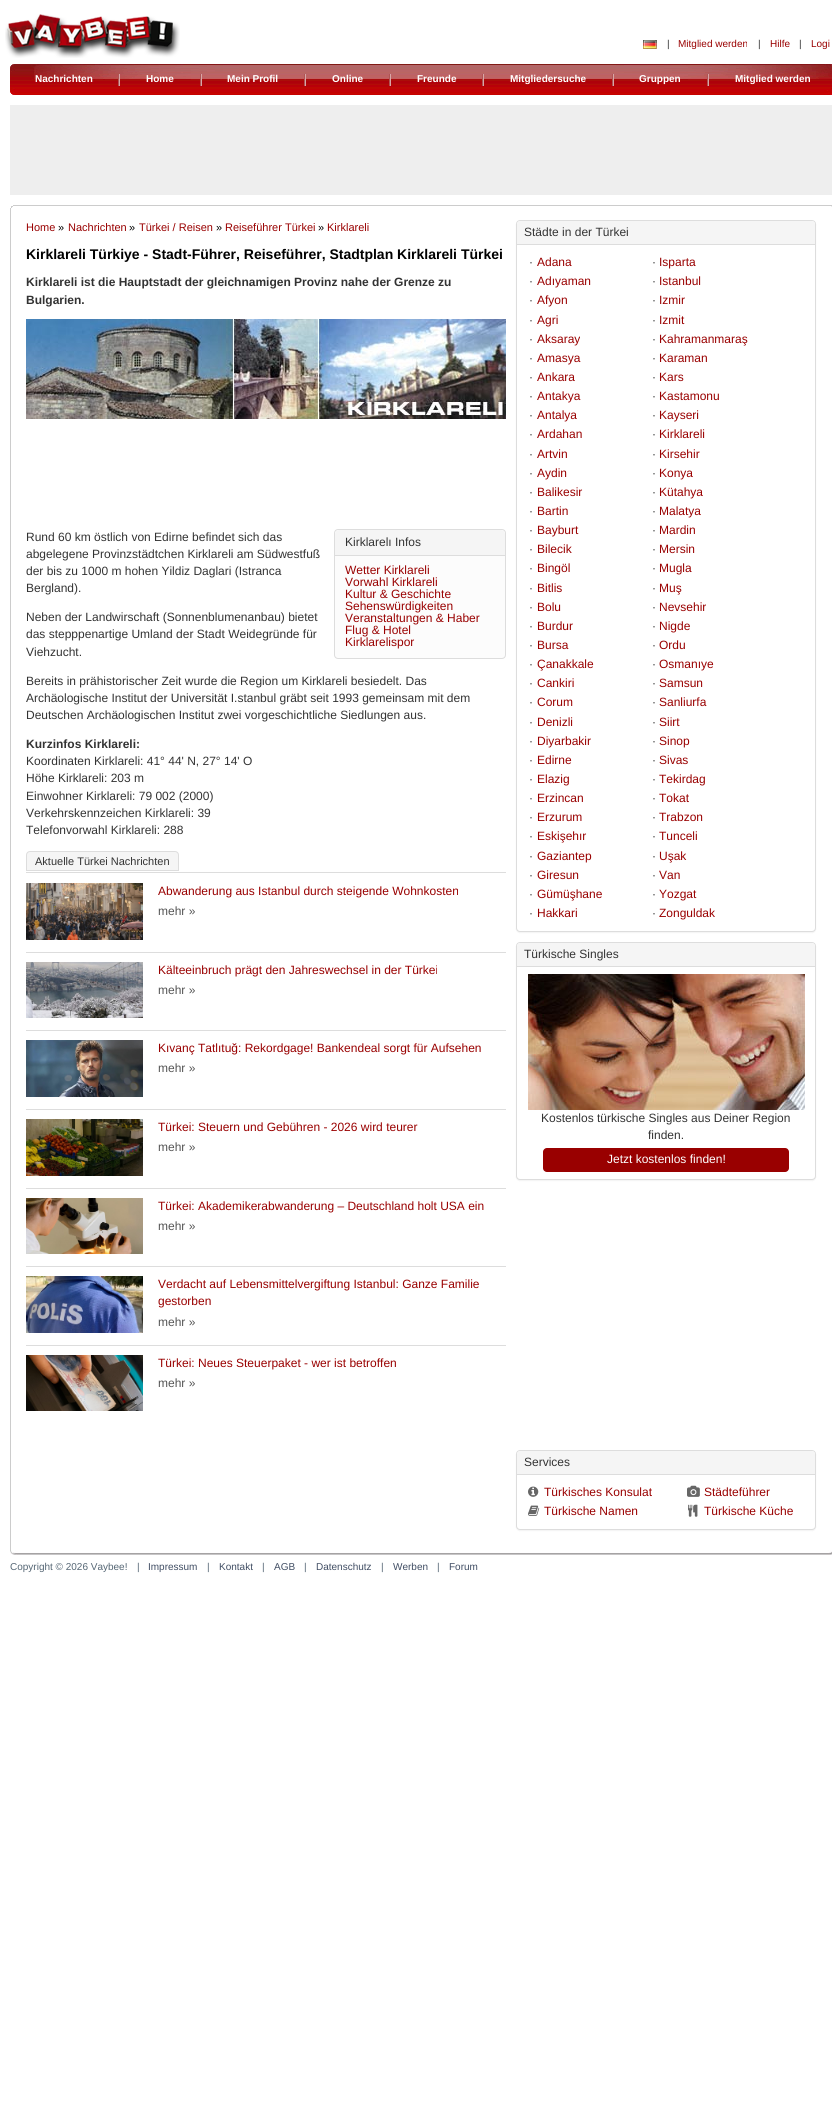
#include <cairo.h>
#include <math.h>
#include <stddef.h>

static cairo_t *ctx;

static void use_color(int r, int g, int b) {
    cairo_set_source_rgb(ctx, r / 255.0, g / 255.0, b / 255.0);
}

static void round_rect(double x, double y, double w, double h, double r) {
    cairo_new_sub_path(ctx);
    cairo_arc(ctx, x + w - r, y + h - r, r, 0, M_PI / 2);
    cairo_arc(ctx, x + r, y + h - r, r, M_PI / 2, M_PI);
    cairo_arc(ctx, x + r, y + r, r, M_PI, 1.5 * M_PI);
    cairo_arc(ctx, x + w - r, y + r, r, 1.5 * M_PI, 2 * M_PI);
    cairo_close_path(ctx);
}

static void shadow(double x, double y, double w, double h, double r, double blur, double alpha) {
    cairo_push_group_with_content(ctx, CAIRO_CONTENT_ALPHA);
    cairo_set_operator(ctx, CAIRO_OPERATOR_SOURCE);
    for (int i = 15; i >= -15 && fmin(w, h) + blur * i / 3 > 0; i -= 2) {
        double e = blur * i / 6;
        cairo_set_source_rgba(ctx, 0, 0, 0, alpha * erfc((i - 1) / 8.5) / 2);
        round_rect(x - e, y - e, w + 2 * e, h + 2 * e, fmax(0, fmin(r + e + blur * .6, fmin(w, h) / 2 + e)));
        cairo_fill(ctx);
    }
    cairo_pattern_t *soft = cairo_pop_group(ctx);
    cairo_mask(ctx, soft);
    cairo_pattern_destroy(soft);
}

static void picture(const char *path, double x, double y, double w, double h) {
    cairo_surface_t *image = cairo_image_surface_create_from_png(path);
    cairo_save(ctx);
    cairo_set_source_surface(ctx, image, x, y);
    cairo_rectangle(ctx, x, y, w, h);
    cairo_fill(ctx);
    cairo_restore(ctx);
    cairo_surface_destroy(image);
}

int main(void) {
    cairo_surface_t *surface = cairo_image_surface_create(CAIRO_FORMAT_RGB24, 832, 2107);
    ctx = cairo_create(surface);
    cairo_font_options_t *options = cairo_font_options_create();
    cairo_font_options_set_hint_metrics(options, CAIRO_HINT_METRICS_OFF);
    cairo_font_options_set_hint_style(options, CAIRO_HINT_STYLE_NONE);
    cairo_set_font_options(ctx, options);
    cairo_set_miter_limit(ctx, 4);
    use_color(255, 255, 255);
    cairo_paint(ctx);
    picture("img1.png", 5, 14, 175, 44);
    picture("img2.png", 643, 40, 14, 9);
    cairo_select_font_face(ctx, "Liberation Sans", CAIRO_FONT_SLANT_NORMAL, CAIRO_FONT_WEIGHT_NORMAL);
    cairo_set_font_size(ctx, 10);
    use_color(51, 51, 51);
    cairo_move_to(ctx, 667, 47);
    cairo_show_text(ctx, "|");
    use_color(153, 0, 0);
    cairo_move_to(ctx, 678, 47);
    cairo_show_text(ctx, "Mitglied werden");
    use_color(51, 51, 51);
    cairo_move_to(ctx, 758, 47);
    cairo_show_text(ctx, "|");
    use_color(153, 0, 0);
    cairo_move_to(ctx, 770, 47);
    cairo_show_text(ctx, "Hilfe");
    use_color(51, 51, 51);
    cairo_move_to(ctx, 799, 47);
    cairo_show_text(ctx, "|");
    use_color(153, 0, 0);
    cairo_move_to(ctx, 811, 47);
    cairo_show_text(ctx, "Logi");
    picture("img3.png", 10, 64, 822, 31);
    cairo_select_font_face(ctx, "Liberation Sans", CAIRO_FONT_SLANT_NORMAL, CAIRO_FONT_WEIGHT_BOLD);
    use_color(255, 255, 255);
    cairo_move_to(ctx, 35, 82);
    cairo_show_text(ctx, "Nachrichten");
    picture("img4.png", 118, 74, 2, 12);
    cairo_move_to(ctx, 146, 82);
    cairo_show_text(ctx, "Home");
    picture("img4.png", 200, 74, 2, 12);
    cairo_move_to(ctx, 227, 82);
    cairo_show_text(ctx, "Mein Profil");
    picture("img4.png", 304, 74, 2, 12);
    cairo_move_to(ctx, 332, 82);
    cairo_show_text(ctx, "Online");
    picture("img4.png", 389, 74, 2, 12);
    cairo_move_to(ctx, 417, 82);
    cairo_show_text(ctx, "Freunde");
    picture("img4.png", 482, 74, 2, 12);
    cairo_move_to(ctx, 510, 82);
    cairo_show_text(ctx, "Mitgliedersuche");
    picture("img4.png", 612, 74, 2, 12);
    cairo_move_to(ctx, 639, 82);
    cairo_show_text(ctx, "Gruppen");
    picture("img4.png", 707, 74, 2, 12);
    cairo_move_to(ctx, 735, 82);
    cairo_show_text(ctx, "Mitglied werden");
    use_color(238, 238, 238);
    cairo_rectangle(ctx, 10, 105, 822, 90);
    cairo_fill(ctx);
    picture("img5.png", 10, 205, 822, 5);
    use_color(204, 204, 204);
    cairo_rectangle(ctx, 10, 210, 1, 1340);
    cairo_fill(ctx);
    cairo_select_font_face(ctx, "Liberation Sans", CAIRO_FONT_SLANT_NORMAL, CAIRO_FONT_WEIGHT_NORMAL);
    cairo_set_font_size(ctx, 11);
    use_color(153, 0, 0);
    cairo_move_to(ctx, 26, 231);
    cairo_show_text(ctx, "Home");
    use_color(0, 0, 0);
    cairo_move_to(ctx, 58, 231);
    cairo_show_text(ctx, "»");
    use_color(153, 0, 0);
    cairo_move_to(ctx, 68, 231);
    cairo_show_text(ctx, "Nachrichten");
    use_color(0, 0, 0);
    cairo_move_to(ctx, 129, 231);
    cairo_show_text(ctx, "»");
    use_color(153, 0, 0);
    cairo_move_to(ctx, 139, 231);
    cairo_show_text(ctx, "Türkei / Reisen");
    use_color(0, 0, 0);
    cairo_move_to(ctx, 216, 231);
    cairo_show_text(ctx, "»");
    use_color(153, 0, 0);
    cairo_move_to(ctx, 225, 231);
    cairo_show_text(ctx, "Reiseführer Türkei");
    use_color(0, 0, 0);
    cairo_move_to(ctx, 318, 231);
    cairo_show_text(ctx, "»");
    use_color(153, 0, 0);
    cairo_move_to(ctx, 327, 231);
    cairo_show_text(ctx, "Kirklareli");
    cairo_select_font_face(ctx, "Liberation Sans", CAIRO_FONT_SLANT_NORMAL, CAIRO_FONT_WEIGHT_BOLD);
    cairo_set_font_size(ctx, 14);
    use_color(0, 0, 0);
    cairo_move_to(ctx, 26, 259);
    cairo_show_text(ctx, "Kirklareli Türkiye - Stadt-Führer, Reiseführer, Stadtplan Kirklareli Türkei");
    cairo_set_font_size(ctx, 12);
    use_color(51, 51, 51);
    cairo_move_to(ctx, 26, 286);
    cairo_show_text(ctx, "Kirklareli ist die Hauptstadt der gleichnamigen Provinz nahe der Grenze zu");
    cairo_move_to(ctx, 26, 304);
    cairo_show_text(ctx, "Bulgarien.");
    picture("img6.png", 26, 319, 480, 100);
    cairo_select_font_face(ctx, "Liberation Sans", CAIRO_FONT_SLANT_NORMAL, CAIRO_FONT_WEIGHT_NORMAL);
    cairo_move_to(ctx, 26, 541);
    cairo_show_text(ctx, "Rund 60 km östlich von Edirne befindet sich das");
    cairo_move_to(ctx, 26, 558);
    cairo_show_text(ctx, "abgelegene Provinzstädtchen Kirklareli am Südwestfuß");
    cairo_move_to(ctx, 26, 575);
    cairo_show_text(ctx, "der bis zu 1000 m hohen Yildiz Daglari (Istranca");
    cairo_move_to(ctx, 26, 592);
    cairo_show_text(ctx, "Bergland).");
    cairo_move_to(ctx, 26, 621);
    cairo_show_text(ctx, "Neben der Landwirschaft (Sonnenblumenanbau) bietet");
    cairo_move_to(ctx, 26, 638);
    cairo_show_text(ctx, "das stepppenartige Umland der Stadt Weidegründe für");
    cairo_move_to(ctx, 26, 656);
    cairo_show_text(ctx, "Viehzucht.");
    cairo_move_to(ctx, 26, 685);
    cairo_show_text(ctx, "Bereits in prähistorischer Zeit wurde die Region um Kirklareli besiedelt. Das");
    cairo_move_to(ctx, 26, 702);
    cairo_show_text(ctx, "Archäologische Institut der Universität I.stanbul gräbt seit 1993 gemeinsam mit dem");
    cairo_move_to(ctx, 26, 719);
    cairo_show_text(ctx, "Deutschen Archäologischen Institut zwei vorgeschichtliche Siedlungen aus.");
    cairo_select_font_face(ctx, "Liberation Sans", CAIRO_FONT_SLANT_NORMAL, CAIRO_FONT_WEIGHT_BOLD);
    cairo_move_to(ctx, 26, 748);
    cairo_show_text(ctx, "Kurzinfos Kirklareli:");
    cairo_select_font_face(ctx, "Liberation Sans", CAIRO_FONT_SLANT_NORMAL, CAIRO_FONT_WEIGHT_NORMAL);
    cairo_move_to(ctx, 26, 765);
    cairo_show_text(ctx, "Koordinaten Kirklareli: 41° 44' N, 27° 14' O");
    cairo_move_to(ctx, 26, 782);
    cairo_show_text(ctx, "Höhe Kirklareli: 203 m");
    cairo_move_to(ctx, 26, 800);
    cairo_show_text(ctx, "Einwohner Kirklareli: 79 002 (2000)");
    cairo_move_to(ctx, 26, 817);
    cairo_show_text(ctx, "Verkehrskennzeichen Kirklareli: 39");
    cairo_move_to(ctx, 26, 834);
    cairo_show_text(ctx, "Telefonvorwahl Kirklareli: 288");
    use_color(252, 252, 252);
    round_rect(334.5, 529.5, 171, 129, 3.5);
    cairo_fill_preserve(ctx);
    use_color(221, 221, 221);
    cairo_set_line_width(ctx, 1);
    cairo_stroke(ctx);
    use_color(245, 245, 245);
    cairo_new_path(ctx);
    cairo_move_to(ctx, 339, 530);
    cairo_line_to(ctx, 501, 530);
    cairo_curve_to(ctx, 503, 530, 505, 532, 505, 534);
    cairo_line_to(ctx, 505, 556);
    cairo_line_to(ctx, 335, 556);
    cairo_line_to(ctx, 335, 534);
    cairo_curve_to(ctx, 335, 532, 337, 530, 339, 530);
    cairo_close_path(ctx);
    cairo_fill(ctx);
    use_color(221, 221, 221);
    cairo_rectangle(ctx, 335, 555, 170, 1);
    cairo_fill(ctx);
    use_color(51, 51, 51);
    cairo_move_to(ctx, 345, 546);
    cairo_show_text(ctx, "Kirklarelı Infos");
    use_color(153, 0, 0);
    cairo_move_to(ctx, 345, 574);
    cairo_show_text(ctx, "Wetter Kirklareli");
    cairo_move_to(ctx, 345, 586);
    cairo_show_text(ctx, "Vorwahl Kirklareli");
    cairo_move_to(ctx, 345, 598);
    cairo_show_text(ctx, "Kultur & Geschichte");
    cairo_move_to(ctx, 345, 610);
    cairo_show_text(ctx, "Sehenswürdigkeiten");
    cairo_move_to(ctx, 345, 622);
    cairo_show_text(ctx, "Veranstaltungen & Haber");
    cairo_move_to(ctx, 345, 634);
    cairo_show_text(ctx, "Flug & Hotel");
    cairo_move_to(ctx, 345, 646);
    cairo_show_text(ctx, "Kirklarelispor");
    use_color(221, 221, 221);
    cairo_rectangle(ctx, 26, 872, 480, 1);
    cairo_fill(ctx);
    use_color(245, 245, 245);
    cairo_new_path(ctx);
    cairo_move_to(ctx, 30, 851.5);
    cairo_line_to(ctx, 175, 851.5);
    cairo_curve_to(ctx, 177, 851.5, 178.5, 853, 178.5, 855);
    cairo_line_to(ctx, 178.5, 870.5);
    cairo_line_to(ctx, 26.5, 870.5);
    cairo_line_to(ctx, 26.5, 855);
    cairo_curve_to(ctx, 26.5, 853, 28, 851.5, 30, 851.5);
    cairo_close_path(ctx);
    cairo_fill_preserve(ctx);
    use_color(221, 221, 221);
    cairo_stroke(ctx);
    cairo_set_font_size(ctx, 11);
    use_color(51, 51, 51);
    cairo_move_to(ctx, 35, 865);
    cairo_show_text(ctx, "Aktuelle Türkei Nachrichten");
    picture("img7.png", 26, 883, 117, 57);
    cairo_set_font_size(ctx, 12);
    use_color(153, 0, 0);
    cairo_move_to(ctx, 158, 895);
    cairo_show_text(ctx, "Abwanderung aus Istanbul durch steigende Wohnkosten");
    use_color(85, 85, 85);
    cairo_move_to(ctx, 158, 915);
    cairo_show_text(ctx, "mehr »");
    use_color(221, 221, 221);
    cairo_rectangle(ctx, 26, 952, 480, 1);
    cairo_fill(ctx);
    picture("img8.png", 26, 962, 117, 56);
    use_color(153, 0, 0);
    cairo_move_to(ctx, 158, 974);
    cairo_show_text(ctx, "Kälteeinbruch prägt den Jahreswechsel in der Türkei");
    use_color(85, 85, 85);
    cairo_move_to(ctx, 158, 994);
    cairo_show_text(ctx, "mehr »");
    use_color(221, 221, 221);
    cairo_rectangle(ctx, 26, 1030, 480, 1);
    cairo_fill(ctx);
    picture("img9.png", 26, 1040, 117, 57);
    use_color(153, 0, 0);
    cairo_move_to(ctx, 158, 1052);
    cairo_show_text(ctx, "Kıvanç Tatlıtuğ: Rekordgage! Bankendeal sorgt für Aufsehen");
    use_color(85, 85, 85);
    cairo_move_to(ctx, 158, 1072);
    cairo_show_text(ctx, "mehr »");
    use_color(221, 221, 221);
    cairo_rectangle(ctx, 26, 1109, 480, 1);
    cairo_fill(ctx);
    picture("img10.png", 26, 1119, 117, 57);
    use_color(153, 0, 0);
    cairo_move_to(ctx, 158, 1131);
    cairo_show_text(ctx, "Türkei: Steuern und Gebühren - 2026 wird teurer");
    use_color(85, 85, 85);
    cairo_move_to(ctx, 158, 1151);
    cairo_show_text(ctx, "mehr »");
    use_color(221, 221, 221);
    cairo_rectangle(ctx, 26, 1188, 480, 1);
    cairo_fill(ctx);
    picture("img11.png", 26, 1198, 117, 56);
    use_color(153, 0, 0);
    cairo_move_to(ctx, 158, 1210);
    cairo_show_text(ctx, "Türkei: Akademikerabwanderung – Deutschland holt USA ein");
    use_color(85, 85, 85);
    cairo_move_to(ctx, 158, 1230);
    cairo_show_text(ctx, "mehr »");
    use_color(221, 221, 221);
    cairo_rectangle(ctx, 26, 1266, 480, 1);
    cairo_fill(ctx);
    picture("img12.png", 26, 1276, 117, 57);
    use_color(153, 0, 0);
    cairo_move_to(ctx, 158, 1288);
    cairo_show_text(ctx, "Verdacht auf Lebensmittelvergiftung Istanbul: Ganze Familie");
    cairo_move_to(ctx, 158, 1305);
    cairo_show_text(ctx, "gestorben");
    use_color(85, 85, 85);
    cairo_move_to(ctx, 158, 1326);
    cairo_show_text(ctx, "mehr »");
    use_color(221, 221, 221);
    cairo_rectangle(ctx, 26, 1345, 480, 1);
    cairo_fill(ctx);
    picture("img13.png", 26, 1355, 117, 56);
    use_color(153, 0, 0);
    cairo_move_to(ctx, 158, 1367);
    cairo_show_text(ctx, "Türkei: Neues Steuerpaket - wer ist betroffen");
    use_color(85, 85, 85);
    cairo_move_to(ctx, 158, 1387);
    cairo_show_text(ctx, "mehr »");
    use_color(0, 0, 0);
    shadow(516, 221, 300, 712, 4, 0.5, 0.05);
    use_color(255, 255, 255);
    round_rect(516.5, 220.5, 299, 711, 3.5);
    cairo_fill_preserve(ctx);
    use_color(221, 221, 221);
    cairo_stroke(ctx);
    use_color(245, 245, 245);
    cairo_new_path(ctx);
    cairo_move_to(ctx, 520, 221);
    cairo_line_to(ctx, 812, 221);
    cairo_curve_to(ctx, 813.5, 221, 815, 222.5, 815, 224);
    cairo_line_to(ctx, 815, 245);
    cairo_line_to(ctx, 517, 245);
    cairo_line_to(ctx, 517, 224);
    cairo_curve_to(ctx, 517, 222.5, 518.5, 221, 520, 221);
    cairo_close_path(ctx);
    cairo_fill(ctx);
    use_color(221, 221, 221);
    cairo_rectangle(ctx, 517, 244, 298, 1);
    cairo_fill(ctx);
    use_color(51, 51, 51);
    cairo_move_to(ctx, 524, 236);
    cairo_show_text(ctx, "Städte in der Türkei");
    cairo_move_to(ctx, 529, 266);
    cairo_show_text(ctx, "·");
    use_color(153, 0, 0);
    cairo_move_to(ctx, 537, 266);
    cairo_show_text(ctx, "Adana");
    use_color(51, 51, 51);
    cairo_move_to(ctx, 652, 266);
    cairo_show_text(ctx, "·");
    use_color(153, 0, 0);
    cairo_move_to(ctx, 659, 266);
    cairo_show_text(ctx, "Isparta");
    use_color(51, 51, 51);
    cairo_move_to(ctx, 529, 285);
    cairo_show_text(ctx, "·");
    use_color(153, 0, 0);
    cairo_move_to(ctx, 537, 285);
    cairo_show_text(ctx, "Adıyaman");
    use_color(51, 51, 51);
    cairo_move_to(ctx, 652, 285);
    cairo_show_text(ctx, "·");
    use_color(153, 0, 0);
    cairo_move_to(ctx, 659, 285);
    cairo_show_text(ctx, "Istanbul");
    use_color(51, 51, 51);
    cairo_move_to(ctx, 529, 304);
    cairo_show_text(ctx, "·");
    use_color(153, 0, 0);
    cairo_move_to(ctx, 537, 304);
    cairo_show_text(ctx, "Afyon");
    use_color(51, 51, 51);
    cairo_move_to(ctx, 652, 304);
    cairo_show_text(ctx, "·");
    use_color(153, 0, 0);
    cairo_move_to(ctx, 659, 304);
    cairo_show_text(ctx, "Izmir");
    use_color(51, 51, 51);
    cairo_move_to(ctx, 529, 324);
    cairo_show_text(ctx, "·");
    use_color(153, 0, 0);
    cairo_move_to(ctx, 537, 324);
    cairo_show_text(ctx, "Agri");
    use_color(51, 51, 51);
    cairo_move_to(ctx, 652, 324);
    cairo_show_text(ctx, "·");
    use_color(153, 0, 0);
    cairo_move_to(ctx, 659, 324);
    cairo_show_text(ctx, "Izmit");
    use_color(51, 51, 51);
    cairo_move_to(ctx, 529, 343);
    cairo_show_text(ctx, "·");
    use_color(153, 0, 0);
    cairo_move_to(ctx, 537, 343);
    cairo_show_text(ctx, "Aksaray");
    use_color(51, 51, 51);
    cairo_move_to(ctx, 652, 343);
    cairo_show_text(ctx, "·");
    use_color(153, 0, 0);
    cairo_move_to(ctx, 659, 343);
    cairo_show_text(ctx, "Kahramanmaraş");
    use_color(51, 51, 51);
    cairo_move_to(ctx, 529, 362);
    cairo_show_text(ctx, "·");
    use_color(153, 0, 0);
    cairo_move_to(ctx, 537, 362);
    cairo_show_text(ctx, "Amasya");
    use_color(51, 51, 51);
    cairo_move_to(ctx, 652, 362);
    cairo_show_text(ctx, "·");
    use_color(153, 0, 0);
    cairo_move_to(ctx, 659, 362);
    cairo_show_text(ctx, "Karaman");
    use_color(51, 51, 51);
    cairo_move_to(ctx, 529, 381);
    cairo_show_text(ctx, "·");
    use_color(153, 0, 0);
    cairo_move_to(ctx, 537, 381);
    cairo_show_text(ctx, "Ankara");
    use_color(51, 51, 51);
    cairo_move_to(ctx, 652, 381);
    cairo_show_text(ctx, "·");
    use_color(153, 0, 0);
    cairo_move_to(ctx, 659, 381);
    cairo_show_text(ctx, "Kars");
    use_color(51, 51, 51);
    cairo_move_to(ctx, 529, 400);
    cairo_show_text(ctx, "·");
    use_color(153, 0, 0);
    cairo_move_to(ctx, 537, 400);
    cairo_show_text(ctx, "Antakya");
    use_color(51, 51, 51);
    cairo_move_to(ctx, 652, 400);
    cairo_show_text(ctx, "·");
    use_color(153, 0, 0);
    cairo_move_to(ctx, 659, 400);
    cairo_show_text(ctx, "Kastamonu");
    use_color(51, 51, 51);
    cairo_move_to(ctx, 529, 419);
    cairo_show_text(ctx, "·");
    use_color(153, 0, 0);
    cairo_move_to(ctx, 537, 419);
    cairo_show_text(ctx, "Antalya");
    use_color(51, 51, 51);
    cairo_move_to(ctx, 652, 419);
    cairo_show_text(ctx, "·");
    use_color(153, 0, 0);
    cairo_move_to(ctx, 659, 419);
    cairo_show_text(ctx, "Kayseri");
    use_color(51, 51, 51);
    cairo_move_to(ctx, 529, 438);
    cairo_show_text(ctx, "·");
    use_color(153, 0, 0);
    cairo_move_to(ctx, 537, 438);
    cairo_show_text(ctx, "Ardahan");
    use_color(51, 51, 51);
    cairo_move_to(ctx, 652, 438);
    cairo_show_text(ctx, "·");
    use_color(153, 0, 0);
    cairo_move_to(ctx, 659, 438);
    cairo_show_text(ctx, "Kirklareli");
    use_color(51, 51, 51);
    cairo_move_to(ctx, 529, 458);
    cairo_show_text(ctx, "·");
    use_color(153, 0, 0);
    cairo_move_to(ctx, 537, 458);
    cairo_show_text(ctx, "Artvin");
    use_color(51, 51, 51);
    cairo_move_to(ctx, 652, 458);
    cairo_show_text(ctx, "·");
    use_color(153, 0, 0);
    cairo_move_to(ctx, 659, 458);
    cairo_show_text(ctx, "Kirsehir");
    use_color(51, 51, 51);
    cairo_move_to(ctx, 529, 477);
    cairo_show_text(ctx, "·");
    use_color(153, 0, 0);
    cairo_move_to(ctx, 537, 477);
    cairo_show_text(ctx, "Aydin");
    use_color(51, 51, 51);
    cairo_move_to(ctx, 652, 477);
    cairo_show_text(ctx, "·");
    use_color(153, 0, 0);
    cairo_move_to(ctx, 659, 477);
    cairo_show_text(ctx, "Konya");
    use_color(51, 51, 51);
    cairo_move_to(ctx, 529, 496);
    cairo_show_text(ctx, "·");
    use_color(153, 0, 0);
    cairo_move_to(ctx, 537, 496);
    cairo_show_text(ctx, "Balikesir");
    use_color(51, 51, 51);
    cairo_move_to(ctx, 652, 496);
    cairo_show_text(ctx, "·");
    use_color(153, 0, 0);
    cairo_move_to(ctx, 659, 496);
    cairo_show_text(ctx, "Kütahya");
    use_color(51, 51, 51);
    cairo_move_to(ctx, 529, 515);
    cairo_show_text(ctx, "·");
    use_color(153, 0, 0);
    cairo_move_to(ctx, 537, 515);
    cairo_show_text(ctx, "Bartin");
    use_color(51, 51, 51);
    cairo_move_to(ctx, 652, 515);
    cairo_show_text(ctx, "·");
    use_color(153, 0, 0);
    cairo_move_to(ctx, 659, 515);
    cairo_show_text(ctx, "Malatya");
    use_color(51, 51, 51);
    cairo_move_to(ctx, 529, 534);
    cairo_show_text(ctx, "·");
    use_color(153, 0, 0);
    cairo_move_to(ctx, 537, 534);
    cairo_show_text(ctx, "Bayburt");
    use_color(51, 51, 51);
    cairo_move_to(ctx, 652, 534);
    cairo_show_text(ctx, "·");
    use_color(153, 0, 0);
    cairo_move_to(ctx, 659, 534);
    cairo_show_text(ctx, "Mardin");
    use_color(51, 51, 51);
    cairo_move_to(ctx, 529, 553);
    cairo_show_text(ctx, "·");
    use_color(153, 0, 0);
    cairo_move_to(ctx, 537, 553);
    cairo_show_text(ctx, "Bilecik");
    use_color(51, 51, 51);
    cairo_move_to(ctx, 652, 553);
    cairo_show_text(ctx, "·");
    use_color(153, 0, 0);
    cairo_move_to(ctx, 659, 553);
    cairo_show_text(ctx, "Mersin");
    use_color(51, 51, 51);
    cairo_move_to(ctx, 529, 572);
    cairo_show_text(ctx, "·");
    use_color(153, 0, 0);
    cairo_move_to(ctx, 537, 572);
    cairo_show_text(ctx, "Bingöl");
    use_color(51, 51, 51);
    cairo_move_to(ctx, 652, 572);
    cairo_show_text(ctx, "·");
    use_color(153, 0, 0);
    cairo_move_to(ctx, 659, 572);
    cairo_show_text(ctx, "Mugla");
    use_color(51, 51, 51);
    cairo_move_to(ctx, 529, 592);
    cairo_show_text(ctx, "·");
    use_color(153, 0, 0);
    cairo_move_to(ctx, 537, 592);
    cairo_show_text(ctx, "Bitlis");
    use_color(51, 51, 51);
    cairo_move_to(ctx, 652, 592);
    cairo_show_text(ctx, "·");
    use_color(153, 0, 0);
    cairo_move_to(ctx, 659, 592);
    cairo_show_text(ctx, "Muş");
    use_color(51, 51, 51);
    cairo_move_to(ctx, 529, 611);
    cairo_show_text(ctx, "·");
    use_color(153, 0, 0);
    cairo_move_to(ctx, 537, 611);
    cairo_show_text(ctx, "Bolu");
    use_color(51, 51, 51);
    cairo_move_to(ctx, 652, 611);
    cairo_show_text(ctx, "·");
    use_color(153, 0, 0);
    cairo_move_to(ctx, 659, 611);
    cairo_show_text(ctx, "Nevsehir");
    use_color(51, 51, 51);
    cairo_move_to(ctx, 529, 630);
    cairo_show_text(ctx, "·");
    use_color(153, 0, 0);
    cairo_move_to(ctx, 537, 630);
    cairo_show_text(ctx, "Burdur");
    use_color(51, 51, 51);
    cairo_move_to(ctx, 652, 630);
    cairo_show_text(ctx, "·");
    use_color(153, 0, 0);
    cairo_move_to(ctx, 659, 630);
    cairo_show_text(ctx, "Nigde");
    use_color(51, 51, 51);
    cairo_move_to(ctx, 529, 649);
    cairo_show_text(ctx, "·");
    use_color(153, 0, 0);
    cairo_move_to(ctx, 537, 649);
    cairo_show_text(ctx, "Bursa");
    use_color(51, 51, 51);
    cairo_move_to(ctx, 652, 649);
    cairo_show_text(ctx, "·");
    use_color(153, 0, 0);
    cairo_move_to(ctx, 659, 649);
    cairo_show_text(ctx, "Ordu");
    use_color(51, 51, 51);
    cairo_move_to(ctx, 529, 668);
    cairo_show_text(ctx, "·");
    use_color(153, 0, 0);
    cairo_move_to(ctx, 537, 668);
    cairo_show_text(ctx, "Çanakkale");
    use_color(51, 51, 51);
    cairo_move_to(ctx, 652, 668);
    cairo_show_text(ctx, "·");
    use_color(153, 0, 0);
    cairo_move_to(ctx, 659, 668);
    cairo_show_text(ctx, "Osmanıye");
    use_color(51, 51, 51);
    cairo_move_to(ctx, 529, 687);
    cairo_show_text(ctx, "·");
    use_color(153, 0, 0);
    cairo_move_to(ctx, 537, 687);
    cairo_show_text(ctx, "Cankiri");
    use_color(51, 51, 51);
    cairo_move_to(ctx, 652, 687);
    cairo_show_text(ctx, "·");
    use_color(153, 0, 0);
    cairo_move_to(ctx, 659, 687);
    cairo_show_text(ctx, "Samsun");
    use_color(51, 51, 51);
    cairo_move_to(ctx, 529, 706);
    cairo_show_text(ctx, "·");
    use_color(153, 0, 0);
    cairo_move_to(ctx, 537, 706);
    cairo_show_text(ctx, "Corum");
    use_color(51, 51, 51);
    cairo_move_to(ctx, 652, 706);
    cairo_show_text(ctx, "·");
    use_color(153, 0, 0);
    cairo_move_to(ctx, 659, 706);
    cairo_show_text(ctx, "Sanliurfa");
    use_color(51, 51, 51);
    cairo_move_to(ctx, 529, 726);
    cairo_show_text(ctx, "·");
    use_color(153, 0, 0);
    cairo_move_to(ctx, 537, 726);
    cairo_show_text(ctx, "Denizli");
    use_color(51, 51, 51);
    cairo_move_to(ctx, 652, 726);
    cairo_show_text(ctx, "·");
    use_color(153, 0, 0);
    cairo_move_to(ctx, 659, 726);
    cairo_show_text(ctx, "Siirt");
    use_color(51, 51, 51);
    cairo_move_to(ctx, 529, 745);
    cairo_show_text(ctx, "·");
    use_color(153, 0, 0);
    cairo_move_to(ctx, 537, 745);
    cairo_show_text(ctx, "Diyarbakir");
    use_color(51, 51, 51);
    cairo_move_to(ctx, 652, 745);
    cairo_show_text(ctx, "·");
    use_color(153, 0, 0);
    cairo_move_to(ctx, 659, 745);
    cairo_show_text(ctx, "Sinop");
    use_color(51, 51, 51);
    cairo_move_to(ctx, 529, 764);
    cairo_show_text(ctx, "·");
    use_color(153, 0, 0);
    cairo_move_to(ctx, 537, 764);
    cairo_show_text(ctx, "Edirne");
    use_color(51, 51, 51);
    cairo_move_to(ctx, 652, 764);
    cairo_show_text(ctx, "·");
    use_color(153, 0, 0);
    cairo_move_to(ctx, 659, 764);
    cairo_show_text(ctx, "Sivas");
    use_color(51, 51, 51);
    cairo_move_to(ctx, 529, 783);
    cairo_show_text(ctx, "·");
    use_color(153, 0, 0);
    cairo_move_to(ctx, 537, 783);
    cairo_show_text(ctx, "Elazig");
    use_color(51, 51, 51);
    cairo_move_to(ctx, 652, 783);
    cairo_show_text(ctx, "·");
    use_color(153, 0, 0);
    cairo_move_to(ctx, 659, 783);
    cairo_show_text(ctx, "Tekirdag");
    use_color(51, 51, 51);
    cairo_move_to(ctx, 529, 802);
    cairo_show_text(ctx, "·");
    use_color(153, 0, 0);
    cairo_move_to(ctx, 537, 802);
    cairo_show_text(ctx, "Erzincan");
    use_color(51, 51, 51);
    cairo_move_to(ctx, 652, 802);
    cairo_show_text(ctx, "·");
    use_color(153, 0, 0);
    cairo_move_to(ctx, 659, 802);
    cairo_show_text(ctx, "Tokat");
    use_color(51, 51, 51);
    cairo_move_to(ctx, 529, 821);
    cairo_show_text(ctx, "·");
    use_color(153, 0, 0);
    cairo_move_to(ctx, 537, 821);
    cairo_show_text(ctx, "Erzurum");
    use_color(51, 51, 51);
    cairo_move_to(ctx, 652, 821);
    cairo_show_text(ctx, "·");
    use_color(153, 0, 0);
    cairo_move_to(ctx, 659, 821);
    cairo_show_text(ctx, "Trabzon");
    use_color(51, 51, 51);
    cairo_move_to(ctx, 529, 840);
    cairo_show_text(ctx, "·");
    use_color(153, 0, 0);
    cairo_move_to(ctx, 537, 840);
    cairo_show_text(ctx, "Eskişehır");
    use_color(51, 51, 51);
    cairo_move_to(ctx, 652, 840);
    cairo_show_text(ctx, "·");
    use_color(153, 0, 0);
    cairo_move_to(ctx, 659, 840);
    cairo_show_text(ctx, "Tunceli");
    use_color(51, 51, 51);
    cairo_move_to(ctx, 529, 860);
    cairo_show_text(ctx, "·");
    use_color(153, 0, 0);
    cairo_move_to(ctx, 537, 860);
    cairo_show_text(ctx, "Gaziantep");
    use_color(51, 51, 51);
    cairo_move_to(ctx, 652, 860);
    cairo_show_text(ctx, "·");
    use_color(153, 0, 0);
    cairo_move_to(ctx, 659, 860);
    cairo_show_text(ctx, "Uşak");
    use_color(51, 51, 51);
    cairo_move_to(ctx, 529, 879);
    cairo_show_text(ctx, "·");
    use_color(153, 0, 0);
    cairo_move_to(ctx, 537, 879);
    cairo_show_text(ctx, "Giresun");
    use_color(51, 51, 51);
    cairo_move_to(ctx, 652, 879);
    cairo_show_text(ctx, "·");
    use_color(153, 0, 0);
    cairo_move_to(ctx, 659, 879);
    cairo_show_text(ctx, "Van");
    use_color(51, 51, 51);
    cairo_move_to(ctx, 529, 898);
    cairo_show_text(ctx, "·");
    use_color(153, 0, 0);
    cairo_move_to(ctx, 537, 898);
    cairo_show_text(ctx, "Gümüşhane");
    use_color(51, 51, 51);
    cairo_move_to(ctx, 652, 898);
    cairo_show_text(ctx, "·");
    use_color(153, 0, 0);
    cairo_move_to(ctx, 659, 898);
    cairo_show_text(ctx, "Yozgat");
    use_color(51, 51, 51);
    cairo_move_to(ctx, 529, 917);
    cairo_show_text(ctx, "·");
    use_color(153, 0, 0);
    cairo_move_to(ctx, 537, 917);
    cairo_show_text(ctx, "Hakkari");
    use_color(51, 51, 51);
    cairo_move_to(ctx, 652, 917);
    cairo_show_text(ctx, "·");
    use_color(153, 0, 0);
    cairo_move_to(ctx, 659, 917);
    cairo_show_text(ctx, "Zonguldak");
    use_color(0, 0, 0);
    shadow(516, 943, 300, 238, 4, 0.5, 0.05);
    use_color(255, 255, 255);
    round_rect(516.5, 942.5, 299, 237, 3.5);
    cairo_fill_preserve(ctx);
    use_color(221, 221, 221);
    cairo_stroke(ctx);
    use_color(245, 245, 245);
    cairo_new_path(ctx);
    cairo_move_to(ctx, 520, 943);
    cairo_line_to(ctx, 812, 943);
    cairo_curve_to(ctx, 813.5, 943, 815, 944.5, 815, 946);
    cairo_line_to(ctx, 815, 967);
    cairo_line_to(ctx, 517, 967);
    cairo_line_to(ctx, 517, 946);
    cairo_curve_to(ctx, 517, 944.5, 518.5, 943, 520, 943);
    cairo_close_path(ctx);
    cairo_fill(ctx);
    use_color(221, 221, 221);
    cairo_rectangle(ctx, 517, 966, 298, 1);
    cairo_fill(ctx);
    use_color(51, 51, 51);
    cairo_move_to(ctx, 524, 958);
    cairo_show_text(ctx, "Türkische Singles");
    picture("img14.png", 528, 974, 277, 136);
    cairo_move_to(ctx, 541, 1122);
    cairo_show_text(ctx, "Kostenlos türkische Singles aus Deiner Region");
    cairo_move_to(ctx, 648, 1139);
    cairo_show_text(ctx, "finden.");
    use_color(153, 0, 0);
    round_rect(543, 1148, 246, 24, 4);
    cairo_fill(ctx);
    use_color(255, 255, 255);
    cairo_move_to(ctx, 607, 1163);
    cairo_show_text(ctx, "Jetzt kostenlos finden!");
    use_color(0, 0, 0);
    shadow(516, 1451, 300, 80, 4, 0.5, 0.05);
    use_color(255, 255, 255);
    round_rect(516.5, 1450.5, 299, 79, 3.5);
    cairo_fill_preserve(ctx);
    use_color(221, 221, 221);
    cairo_stroke(ctx);
    use_color(245, 245, 245);
    cairo_new_path(ctx);
    cairo_move_to(ctx, 520, 1451);
    cairo_line_to(ctx, 812, 1451);
    cairo_curve_to(ctx, 813.5, 1451, 815, 1452.5, 815, 1454);
    cairo_line_to(ctx, 815, 1475);
    cairo_line_to(ctx, 517, 1475);
    cairo_line_to(ctx, 517, 1454);
    cairo_curve_to(ctx, 517, 1452.5, 518.5, 1451, 520, 1451);
    cairo_close_path(ctx);
    cairo_fill(ctx);
    use_color(221, 221, 221);
    cairo_rectangle(ctx, 517, 1474, 298, 1);
    cairo_fill(ctx);
    use_color(51, 51, 51);
    cairo_move_to(ctx, 524, 1466);
    cairo_show_text(ctx, "Services");
    picture("img15.png", 528, 1486, 11, 11);
    use_color(153, 0, 0);
    cairo_move_to(ctx, 544, 1496);
    cairo_show_text(ctx, "Türkisches Konsulat");
    picture("img16.png", 687, 1485, 13, 12);
    cairo_move_to(ctx, 704, 1496);
    cairo_show_text(ctx, "Städteführer");
    picture("img17.png", 528, 1505, 12, 11);
    cairo_move_to(ctx, 544, 1515);
    cairo_show_text(ctx, "Türkische Namen");
    picture("img18.png", 688, 1504, 10, 13);
    cairo_move_to(ctx, 704, 1515);
    cairo_show_text(ctx, "Türkische Küche");
    picture("img19.png", 10, 1550, 822, 5);
    cairo_set_font_size(ctx, 10);
    use_color(85, 102, 116);
    cairo_move_to(ctx, 10, 1570);
    cairo_show_text(ctx, "Copyright © 2026 Vaybee!");
    cairo_move_to(ctx, 137, 1570);
    cairo_show_text(ctx, "|");
    use_color(64, 77, 99);
    cairo_move_to(ctx, 148, 1570);
    cairo_show_text(ctx, "Impressum");
    use_color(85, 102, 116);
    cairo_move_to(ctx, 207, 1570);
    cairo_show_text(ctx, "|");
    use_color(64, 77, 99);
    cairo_move_to(ctx, 219, 1570);
    cairo_show_text(ctx, "Kontakt");
    use_color(85, 102, 116);
    cairo_move_to(ctx, 262, 1570);
    cairo_show_text(ctx, "|");
    use_color(64, 77, 99);
    cairo_move_to(ctx, 274, 1570);
    cairo_show_text(ctx, "AGB");
    use_color(85, 102, 116);
    cairo_move_to(ctx, 304, 1570);
    cairo_show_text(ctx, "|");
    use_color(64, 77, 99);
    cairo_move_to(ctx, 316, 1570);
    cairo_show_text(ctx, "Datenschutz");
    use_color(85, 102, 116);
    cairo_move_to(ctx, 381, 1570);
    cairo_show_text(ctx, "|");
    use_color(64, 77, 99);
    cairo_move_to(ctx, 393, 1570);
    cairo_show_text(ctx, "Werben");
    use_color(85, 102, 116);
    cairo_move_to(ctx, 437, 1570);
    cairo_show_text(ctx, "|");
    use_color(64, 77, 99);
    cairo_move_to(ctx, 449, 1570);
    cairo_show_text(ctx, "Forum");
    cairo_surface_write_to_png(surface, "result.png");
    cairo_font_options_destroy(options);
    cairo_destroy(ctx);
    cairo_surface_destroy(surface);
    return 0;
}
